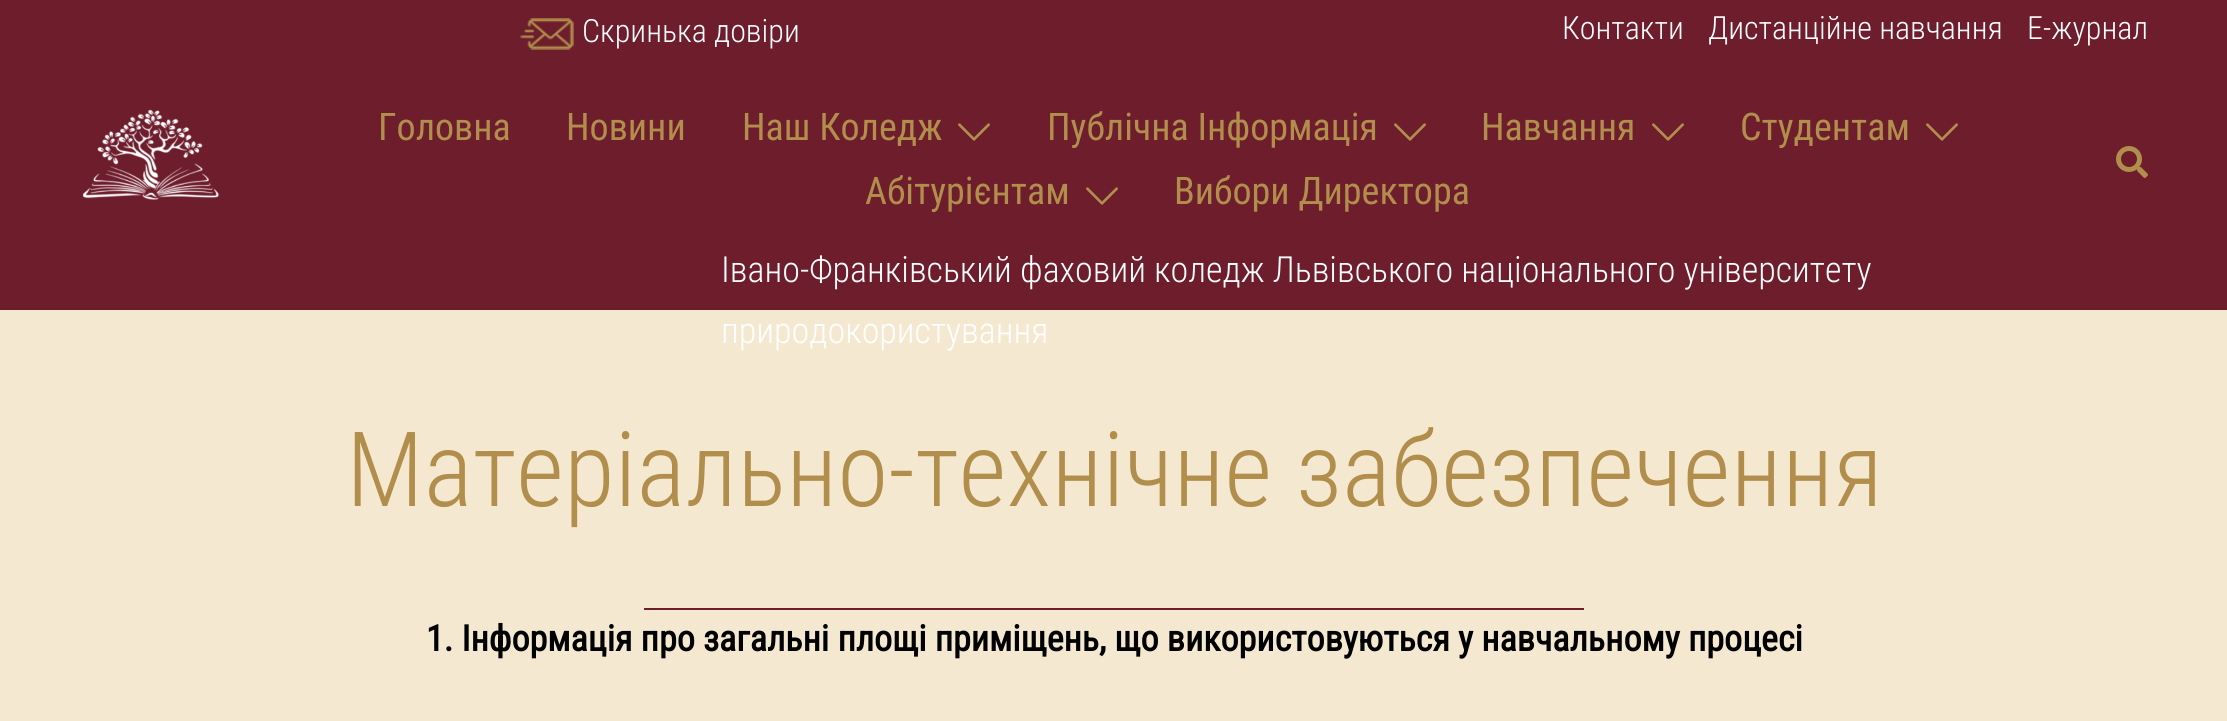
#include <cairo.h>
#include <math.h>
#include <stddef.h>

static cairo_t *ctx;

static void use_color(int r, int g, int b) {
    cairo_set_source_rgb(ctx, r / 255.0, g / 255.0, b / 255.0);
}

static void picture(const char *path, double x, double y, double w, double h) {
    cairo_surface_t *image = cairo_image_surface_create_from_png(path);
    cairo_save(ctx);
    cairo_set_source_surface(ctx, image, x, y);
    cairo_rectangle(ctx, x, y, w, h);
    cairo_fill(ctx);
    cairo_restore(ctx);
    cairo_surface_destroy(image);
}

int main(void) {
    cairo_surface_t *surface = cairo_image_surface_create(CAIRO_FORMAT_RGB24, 2227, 721);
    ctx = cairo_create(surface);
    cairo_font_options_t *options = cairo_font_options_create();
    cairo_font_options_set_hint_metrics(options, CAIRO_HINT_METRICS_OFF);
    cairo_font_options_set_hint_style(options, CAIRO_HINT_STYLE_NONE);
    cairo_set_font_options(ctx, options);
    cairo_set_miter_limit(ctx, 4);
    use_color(245, 232, 209);
    cairo_paint(ctx);
    use_color(110, 29, 44);
    cairo_rectangle(ctx, 0, 0, 2227, 310);
    cairo_fill(ctx);
    picture("img1.png", 520, 18, 54, 32);
    cairo_select_font_face(ctx, "Roboto Condensed Light", CAIRO_FONT_SLANT_NORMAL, CAIRO_FONT_WEIGHT_NORMAL);
    cairo_set_font_size(ctx, 32);
    use_color(254, 254, 254);
    cairo_move_to(ctx, 582, 42);
    cairo_show_text(ctx, "Скринька довіри");
    cairo_move_to(ctx, 1562, 39);
    cairo_show_text(ctx, "Контакти");
    cairo_move_to(ctx, 1708, 39);
    cairo_show_text(ctx, "Дистанційне навчання");
    cairo_move_to(ctx, 2027, 39);
    cairo_show_text(ctx, "Е-журнал");
    picture("img2.png", 82, 109, 137, 91);
    cairo_select_font_face(ctx, "Roboto Condensed", CAIRO_FONT_SLANT_NORMAL, CAIRO_FONT_WEIGHT_NORMAL);
    cairo_set_font_size(ctx, 38);
    use_color(177, 142, 76);
    cairo_move_to(ctx, 378, 140);
    cairo_show_text(ctx, "Головна");
    cairo_move_to(ctx, 566, 140);
    cairo_show_text(ctx, "Новини");
    cairo_move_to(ctx, 742, 140);
    cairo_show_text(ctx, "Наш Коледж");
    picture("img3.png", 958, 123, 32, 18);
    cairo_move_to(ctx, 1047, 140);
    cairo_show_text(ctx, "Публічна Інформація");
    picture("img3.png", 1394, 123, 32, 18);
    cairo_move_to(ctx, 1481, 140);
    cairo_show_text(ctx, "Навчання");
    picture("img3.png", 1652, 123, 32, 18);
    cairo_move_to(ctx, 1740, 140);
    cairo_show_text(ctx, "Студентам");
    picture("img3.png", 1926, 123, 32, 18);
    cairo_move_to(ctx, 865, 204);
    cairo_show_text(ctx, "Абітурієнтам");
    picture("img3.png", 1086, 187, 32, 18);
    cairo_move_to(ctx, 1174, 204);
    cairo_show_text(ctx, "Вибори Директора");
    picture("img4.png", 2116, 146, 32, 32);
    cairo_select_font_face(ctx, "Roboto Condensed Light", CAIRO_FONT_SLANT_NORMAL, CAIRO_FONT_WEIGHT_NORMAL);
    cairo_set_font_size(ctx, 36);
    use_color(254, 254, 254);
    cairo_move_to(ctx, 721, 282);
    cairo_show_text(ctx, "Івано-Франківський фаховий коледж Львівського національного університету");
    cairo_move_to(ctx, 721, 343);
    cairo_show_text(ctx, "природокористування");
    cairo_set_font_size(ctx, 104);
    use_color(177, 142, 76);
    cairo_move_to(ctx, 346, 506);
    cairo_show_text(ctx, "Матеріально-технічне забезпечення");
    use_color(110, 29, 44);
    cairo_rectangle(ctx, 644, 608, 940, 2);
    cairo_fill(ctx);
    cairo_select_font_face(ctx, "Roboto Condensed", CAIRO_FONT_SLANT_NORMAL, CAIRO_FONT_WEIGHT_BOLD);
    cairo_set_font_size(ctx, 36);
    use_color(0, 0, 0);
    cairo_move_to(ctx, 426, 651);
    cairo_show_text(ctx, "1. Інформація про загальні площі приміщень, що використовуються у навчальному процесі");
    cairo_surface_write_to_png(surface, "result.png");
    cairo_font_options_destroy(options);
    cairo_destroy(ctx);
    cairo_surface_destroy(surface);
    return 0;
}
